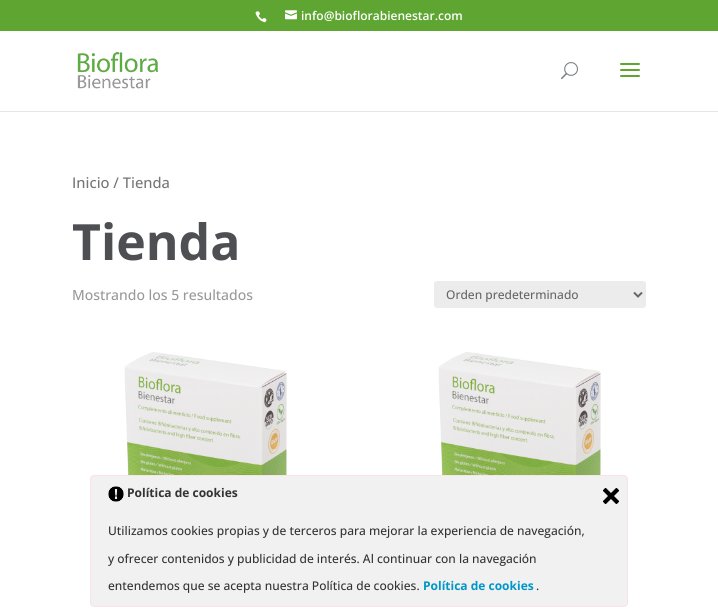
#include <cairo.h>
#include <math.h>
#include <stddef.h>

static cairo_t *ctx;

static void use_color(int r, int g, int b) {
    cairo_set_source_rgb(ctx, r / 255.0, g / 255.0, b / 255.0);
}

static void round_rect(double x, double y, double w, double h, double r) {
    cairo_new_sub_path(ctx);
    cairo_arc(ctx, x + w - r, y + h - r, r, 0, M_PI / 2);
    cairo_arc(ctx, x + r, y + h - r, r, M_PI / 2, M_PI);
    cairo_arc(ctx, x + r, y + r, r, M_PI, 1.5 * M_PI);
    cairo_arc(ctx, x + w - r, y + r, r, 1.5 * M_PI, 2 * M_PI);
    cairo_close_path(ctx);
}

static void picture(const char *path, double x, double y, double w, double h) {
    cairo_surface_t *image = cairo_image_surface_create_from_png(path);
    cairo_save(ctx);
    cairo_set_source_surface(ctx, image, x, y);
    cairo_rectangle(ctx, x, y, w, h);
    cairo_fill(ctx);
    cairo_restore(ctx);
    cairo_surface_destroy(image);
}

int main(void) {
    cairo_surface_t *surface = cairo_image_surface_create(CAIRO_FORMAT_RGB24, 718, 612);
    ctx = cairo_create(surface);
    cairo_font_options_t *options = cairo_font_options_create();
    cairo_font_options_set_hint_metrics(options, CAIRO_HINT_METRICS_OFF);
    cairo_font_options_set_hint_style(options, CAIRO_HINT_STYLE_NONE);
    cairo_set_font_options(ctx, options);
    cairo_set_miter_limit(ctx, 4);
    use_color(255, 255, 255);
    cairo_paint(ctx);
    use_color(94, 166, 49);
    cairo_rectangle(ctx, 0, 0, 718, 31);
    cairo_fill(ctx);
    picture("img1.png", 255, 11, 12, 12);
    picture("img2.png", 285, 10, 12, 10);
    cairo_select_font_face(ctx, "Open Sans SemiBold", CAIRO_FONT_SLANT_NORMAL, CAIRO_FONT_WEIGHT_NORMAL);
    cairo_set_font_size(ctx, 12);
    use_color(255, 255, 255);
    cairo_move_to(ctx, 301, 20);
    cairo_show_text(ctx, "info@bioflorabienestar.com");
    use_color(230, 230, 230);
    cairo_rectangle(ctx, 0, 111, 718, 1);
    cairo_fill(ctx);
    picture("img3.png", 77, 52, 81, 37);
    picture("img4.png", 561, 62, 17, 18);
    picture("img5.png", 620, 63, 20, 14);
    cairo_select_font_face(ctx, "Open Sans Medium", CAIRO_FONT_SLANT_NORMAL, CAIRO_FONT_WEIGHT_NORMAL);
    cairo_set_font_size(ctx, 14.75);
    use_color(118, 118, 118);
    cairo_move_to(ctx, 72, 188);
    cairo_show_text(ctx, "Inicio / Tienda");
    cairo_select_font_face(ctx, "Open Sans", CAIRO_FONT_SLANT_NORMAL, CAIRO_FONT_WEIGHT_BOLD);
    cairo_set_font_size(ctx, 50);
    use_color(78, 79, 83);
    cairo_move_to(ctx, 72, 260);
    cairo_show_text(ctx, "Tienda");
    cairo_select_font_face(ctx, "Open Sans Medium", CAIRO_FONT_SLANT_NORMAL, CAIRO_FONT_WEIGHT_NORMAL);
    cairo_set_font_size(ctx, 14);
    use_color(153, 153, 153);
    cairo_move_to(ctx, 72, 300);
    cairo_show_text(ctx, "Mostrando los 5 resultados");
    use_color(236, 236, 236);
    round_rect(434, 281, 212, 27, 3);
    cairo_fill(ctx);
    cairo_new_path(ctx);
    cairo_move_to(ctx, 634, 292.5);
    cairo_line_to(ctx, 638, 296.5);
    cairo_line_to(ctx, 642, 292.5);
    use_color(102, 102, 102);
    cairo_stroke(ctx);
    cairo_set_font_size(ctx, 12);
    cairo_move_to(ctx, 446, 299);
    cairo_show_text(ctx, "Orden predeterminado");
    picture("img6.png", 124, 352, 163, 123);
    picture("img7.png", 438, 352, 163, 123);
    use_color(241, 241, 241);
    round_rect(90.5, 475.5, 537, 131, 3.5);
    cairo_fill_preserve(ctx);
    use_color(250, 227, 229);
    cairo_set_line_width(ctx, 1);
    cairo_stroke(ctx);
    picture("img8.png", 108, 486, 16, 16);
    cairo_select_font_face(ctx, "Open Sans", CAIRO_FONT_SLANT_NORMAL, CAIRO_FONT_WEIGHT_BOLD);
    use_color(51, 51, 51);
    cairo_move_to(ctx, 127, 497);
    cairo_show_text(ctx, "Política de cookies");
    picture("img9.png", 603, 488, 16, 16);
    cairo_select_font_face(ctx, "Open Sans Medium", CAIRO_FONT_SLANT_NORMAL, CAIRO_FONT_WEIGHT_NORMAL);
    cairo_move_to(ctx, 108, 535);
    cairo_show_text(ctx, "Utilizamos cookies propias y de terceros para mejorar la experiencia de navegación,");
    cairo_move_to(ctx, 108, 563);
    cairo_show_text(ctx, "y ofrecer contenidos y publicidad de interés. Al continuar con la navegación");
    cairo_move_to(ctx, 108, 590);
    cairo_show_text(ctx, "entendemos que se acepta nuestra Política de cookies.");
    cairo_select_font_face(ctx, "Open Sans", CAIRO_FONT_SLANT_NORMAL, CAIRO_FONT_WEIGHT_BOLD);
    use_color(0, 151, 200);
    cairo_move_to(ctx, 423, 590);
    cairo_show_text(ctx, "Política de cookies");
    cairo_select_font_face(ctx, "Open Sans Medium", CAIRO_FONT_SLANT_NORMAL, CAIRO_FONT_WEIGHT_NORMAL);
    use_color(51, 51, 51);
    cairo_move_to(ctx, 536, 590);
    cairo_show_text(ctx, ".");
    cairo_surface_write_to_png(surface, "result.png");
    cairo_font_options_destroy(options);
    cairo_destroy(ctx);
    cairo_surface_destroy(surface);
    return 0;
}
